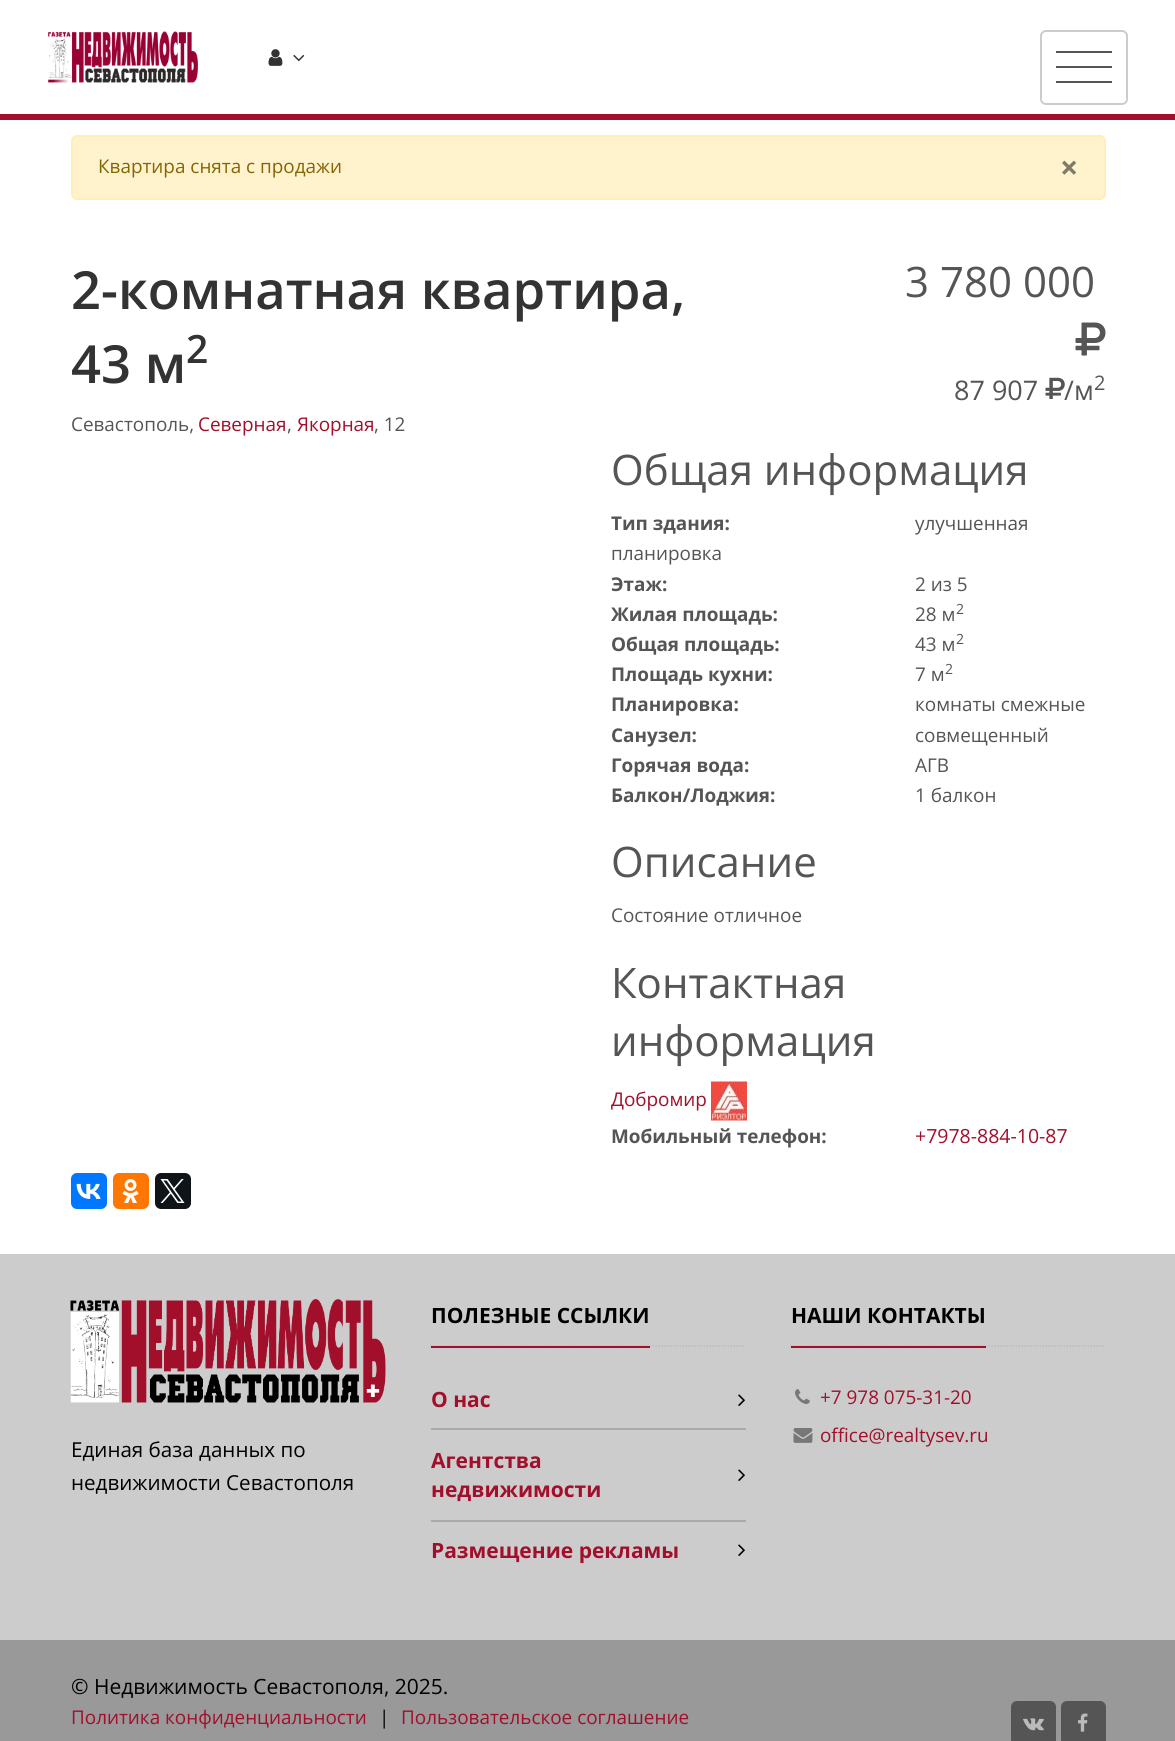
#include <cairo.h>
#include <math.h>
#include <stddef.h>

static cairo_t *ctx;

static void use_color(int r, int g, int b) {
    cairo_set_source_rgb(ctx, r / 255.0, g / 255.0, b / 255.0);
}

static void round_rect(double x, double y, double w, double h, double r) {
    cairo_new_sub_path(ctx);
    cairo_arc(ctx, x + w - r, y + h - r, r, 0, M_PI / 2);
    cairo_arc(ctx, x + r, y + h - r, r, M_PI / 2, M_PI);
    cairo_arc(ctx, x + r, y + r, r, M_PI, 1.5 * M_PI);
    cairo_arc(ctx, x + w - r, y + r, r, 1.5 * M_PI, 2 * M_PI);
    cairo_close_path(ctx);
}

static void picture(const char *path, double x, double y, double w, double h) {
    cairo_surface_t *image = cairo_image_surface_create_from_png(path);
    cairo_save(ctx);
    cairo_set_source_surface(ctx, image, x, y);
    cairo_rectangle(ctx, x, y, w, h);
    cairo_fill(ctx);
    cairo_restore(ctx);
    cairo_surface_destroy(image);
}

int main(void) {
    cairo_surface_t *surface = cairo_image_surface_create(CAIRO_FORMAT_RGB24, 1175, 1741);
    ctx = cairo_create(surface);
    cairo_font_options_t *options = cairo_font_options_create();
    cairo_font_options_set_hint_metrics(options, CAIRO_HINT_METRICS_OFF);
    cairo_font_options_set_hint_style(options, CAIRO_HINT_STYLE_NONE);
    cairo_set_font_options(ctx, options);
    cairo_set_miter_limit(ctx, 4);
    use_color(255, 255, 255);
    cairo_paint(ctx);
    use_color(161, 15, 43);
    cairo_rectangle(ctx, 0, 114, 1175, 6);
    cairo_fill(ctx);
    picture("img1.png", 48, 31, 150, 52);
    picture("img2.png", 268, 49, 15, 17);
    picture("img3.png", 293, 54, 12, 8);
    round_rect(1041, 31, 86, 73, 5);
    use_color(204, 204, 204);
    cairo_stroke(ctx);
    use_color(85, 85, 85);
    cairo_rectangle(ctx, 1056, 51, 56, 2);
    cairo_fill(ctx);
    cairo_rectangle(ctx, 1056, 66, 56, 2);
    cairo_fill(ctx);
    cairo_rectangle(ctx, 1056, 81, 56, 2);
    cairo_fill(ctx);
    use_color(255, 243, 205);
    round_rect(72, 136, 1033, 63, 5);
    cairo_fill_preserve(ctx);
    use_color(255, 238, 186);
    cairo_stroke(ctx);
    cairo_select_font_face(ctx, "Open Sans", CAIRO_FONT_SLANT_NORMAL, CAIRO_FONT_WEIGHT_NORMAL);
    cairo_set_font_size(ctx, 18.9);
    use_color(133, 100, 4);
    cairo_move_to(ctx, 98, 173);
    cairo_show_text(ctx, "Квартира снята с продажи");
    cairo_select_font_face(ctx, "Open Sans", CAIRO_FONT_SLANT_NORMAL, CAIRO_FONT_WEIGHT_BOLD);
    cairo_set_font_size(ctx, 32);
    use_color(128, 122, 103);
    cairo_move_to(ctx, 1060, 179);
    cairo_show_text(ctx, "×");
    cairo_select_font_face(ctx, "Open Sans SemiBold", CAIRO_FONT_SLANT_NORMAL, CAIRO_FONT_WEIGHT_NORMAL);
    cairo_set_font_size(ctx, 52.5);
    use_color(51, 51, 51);
    cairo_move_to(ctx, 71, 309);
    cairo_show_text(ctx, "2-комнатная квартира,");
    cairo_move_to(ctx, 71, 383);
    cairo_show_text(ctx, "43 м");
    cairo_set_font_size(ctx, 39);
    cairo_move_to(ctx, 186, 363);
    cairo_show_text(ctx, "2");
    cairo_select_font_face(ctx, "Open Sans", CAIRO_FONT_SLANT_NORMAL, CAIRO_FONT_WEIGHT_NORMAL);
    cairo_set_font_size(ctx, 18.9);
    use_color(85, 85, 85);
    cairo_move_to(ctx, 71, 431);
    cairo_show_text(ctx, "Севастополь,");
    use_color(161, 15, 43);
    cairo_move_to(ctx, 198, 431);
    cairo_show_text(ctx, "Северная");
    use_color(85, 85, 85);
    cairo_move_to(ctx, 287, 431);
    cairo_show_text(ctx, ",");
    use_color(161, 15, 43);
    cairo_move_to(ctx, 297, 431);
    cairo_show_text(ctx, "Якорная");
    use_color(85, 85, 85);
    cairo_move_to(ctx, 374, 431);
    cairo_show_text(ctx, ", 12");
    cairo_set_font_size(ctx, 42);
    cairo_move_to(ctx, 905, 297);
    cairo_show_text(ctx, "3 780 000");
    picture("img4.png", 1075, 322, 31, 34);
    cairo_set_font_size(ctx, 27);
    cairo_move_to(ctx, 954, 400);
    cairo_show_text(ctx, "87 907");
    picture("img5.png", 1045, 377, 20, 22);
    cairo_move_to(ctx, 1064, 400);
    cairo_show_text(ctx, "/м");
    cairo_set_font_size(ctx, 20);
    cairo_move_to(ctx, 1094, 390);
    cairo_show_text(ctx, "2");
    cairo_set_font_size(ctx, 42);
    cairo_move_to(ctx, 611, 485);
    cairo_show_text(ctx, "Общая информация");
    cairo_select_font_face(ctx, "Open Sans", CAIRO_FONT_SLANT_NORMAL, CAIRO_FONT_WEIGHT_BOLD);
    cairo_set_font_size(ctx, 18.9);
    cairo_move_to(ctx, 611, 530);
    cairo_show_text(ctx, "Тип здания:");
    cairo_select_font_face(ctx, "Open Sans", CAIRO_FONT_SLANT_NORMAL, CAIRO_FONT_WEIGHT_NORMAL);
    cairo_move_to(ctx, 915, 530);
    cairo_show_text(ctx, "улучшенная");
    cairo_move_to(ctx, 611, 560);
    cairo_show_text(ctx, "планировка");
    cairo_select_font_face(ctx, "Open Sans", CAIRO_FONT_SLANT_NORMAL, CAIRO_FONT_WEIGHT_BOLD);
    cairo_move_to(ctx, 611, 591);
    cairo_show_text(ctx, "Этаж:");
    cairo_select_font_face(ctx, "Open Sans", CAIRO_FONT_SLANT_NORMAL, CAIRO_FONT_WEIGHT_NORMAL);
    cairo_move_to(ctx, 915, 591);
    cairo_show_text(ctx, "2 из 5");
    cairo_select_font_face(ctx, "Open Sans", CAIRO_FONT_SLANT_NORMAL, CAIRO_FONT_WEIGHT_BOLD);
    cairo_move_to(ctx, 611, 621);
    cairo_show_text(ctx, "Жилая площадь:");
    cairo_select_font_face(ctx, "Open Sans", CAIRO_FONT_SLANT_NORMAL, CAIRO_FONT_WEIGHT_NORMAL);
    cairo_move_to(ctx, 915, 621);
    cairo_show_text(ctx, "28 м");
    cairo_set_font_size(ctx, 14);
    cairo_move_to(ctx, 956, 614);
    cairo_show_text(ctx, "2");
    cairo_select_font_face(ctx, "Open Sans", CAIRO_FONT_SLANT_NORMAL, CAIRO_FONT_WEIGHT_BOLD);
    cairo_set_font_size(ctx, 18.9);
    cairo_move_to(ctx, 611, 651);
    cairo_show_text(ctx, "Общая площадь:");
    cairo_select_font_face(ctx, "Open Sans", CAIRO_FONT_SLANT_NORMAL, CAIRO_FONT_WEIGHT_NORMAL);
    cairo_move_to(ctx, 915, 651);
    cairo_show_text(ctx, "43 м");
    cairo_set_font_size(ctx, 14);
    cairo_move_to(ctx, 956, 644);
    cairo_show_text(ctx, "2");
    cairo_select_font_face(ctx, "Open Sans", CAIRO_FONT_SLANT_NORMAL, CAIRO_FONT_WEIGHT_BOLD);
    cairo_set_font_size(ctx, 18.9);
    cairo_move_to(ctx, 611, 681);
    cairo_show_text(ctx, "Площадь кухни:");
    cairo_select_font_face(ctx, "Open Sans", CAIRO_FONT_SLANT_NORMAL, CAIRO_FONT_WEIGHT_NORMAL);
    cairo_move_to(ctx, 915, 681);
    cairo_show_text(ctx, "7 м");
    cairo_set_font_size(ctx, 14);
    cairo_move_to(ctx, 945, 674);
    cairo_show_text(ctx, "2");
    cairo_select_font_face(ctx, "Open Sans", CAIRO_FONT_SLANT_NORMAL, CAIRO_FONT_WEIGHT_BOLD);
    cairo_set_font_size(ctx, 18.9);
    cairo_move_to(ctx, 611, 711);
    cairo_show_text(ctx, "Планировка:");
    cairo_select_font_face(ctx, "Open Sans", CAIRO_FONT_SLANT_NORMAL, CAIRO_FONT_WEIGHT_NORMAL);
    cairo_move_to(ctx, 915, 711);
    cairo_show_text(ctx, "комнаты смежные");
    cairo_select_font_face(ctx, "Open Sans", CAIRO_FONT_SLANT_NORMAL, CAIRO_FONT_WEIGHT_BOLD);
    cairo_move_to(ctx, 611, 742);
    cairo_show_text(ctx, "Санузел:");
    cairo_select_font_face(ctx, "Open Sans", CAIRO_FONT_SLANT_NORMAL, CAIRO_FONT_WEIGHT_NORMAL);
    cairo_move_to(ctx, 915, 742);
    cairo_show_text(ctx, "совмещенный");
    cairo_select_font_face(ctx, "Open Sans", CAIRO_FONT_SLANT_NORMAL, CAIRO_FONT_WEIGHT_BOLD);
    cairo_move_to(ctx, 611, 772);
    cairo_show_text(ctx, "Горячая вода:");
    cairo_select_font_face(ctx, "Open Sans", CAIRO_FONT_SLANT_NORMAL, CAIRO_FONT_WEIGHT_NORMAL);
    cairo_move_to(ctx, 915, 772);
    cairo_show_text(ctx, "АГВ");
    cairo_select_font_face(ctx, "Open Sans", CAIRO_FONT_SLANT_NORMAL, CAIRO_FONT_WEIGHT_BOLD);
    cairo_move_to(ctx, 611, 802);
    cairo_show_text(ctx, "Балкон/Лоджия:");
    cairo_select_font_face(ctx, "Open Sans", CAIRO_FONT_SLANT_NORMAL, CAIRO_FONT_WEIGHT_NORMAL);
    cairo_move_to(ctx, 915, 802);
    cairo_show_text(ctx, "1 балкон");
    cairo_set_font_size(ctx, 42);
    cairo_move_to(ctx, 611, 877);
    cairo_show_text(ctx, "Описание");
    cairo_set_font_size(ctx, 18.9);
    cairo_move_to(ctx, 611, 922);
    cairo_show_text(ctx, "Состояние отличное");
    cairo_set_font_size(ctx, 42);
    cairo_move_to(ctx, 611, 998);
    cairo_show_text(ctx, "Контактная");
    cairo_move_to(ctx, 611, 1056);
    cairo_show_text(ctx, "информация");
    cairo_set_font_size(ctx, 18.9);
    use_color(161, 15, 43);
    cairo_move_to(ctx, 611, 1106);
    cairo_show_text(ctx, "Добромир");
    picture("img6.png", 711, 1081, 36, 40);
    cairo_select_font_face(ctx, "Open Sans", CAIRO_FONT_SLANT_NORMAL, CAIRO_FONT_WEIGHT_BOLD);
    use_color(85, 85, 85);
    cairo_move_to(ctx, 611, 1143);
    cairo_show_text(ctx, "Мобильный телефон:");
    cairo_select_font_face(ctx, "Open Sans", CAIRO_FONT_SLANT_NORMAL, CAIRO_FONT_WEIGHT_NORMAL);
    cairo_set_font_size(ctx, 19.5);
    use_color(161, 15, 43);
    cairo_move_to(ctx, 915, 1143);
    cairo_show_text(ctx, "+7978-884-10-87");
    use_color(0, 119, 255);
    round_rect(71, 1173, 36, 36, 6);
    cairo_fill(ctx);
    picture("img7.png", 76, 1183, 25, 16);
    use_color(255, 119, 0);
    round_rect(113, 1173, 36, 36, 6);
    cairo_fill(ctx);
    picture("img8.png", 122, 1179, 17, 24);
    use_color(15, 20, 25);
    round_rect(155, 1173, 36, 36, 6);
    cairo_fill(ctx);
    picture("img9.png", 160, 1179, 25, 24);
    use_color(204, 204, 204);
    cairo_rectangle(ctx, 0, 1254, 1175, 386);
    cairo_fill(ctx);
    cairo_new_path(ctx);
    cairo_move_to(ctx, 430.5, 1346);
    cairo_line_to(ctx, 745.5, 1346);
    use_color(187, 187, 187);
    cairo_set_line_width(ctx, 1.5);
    cairo_set_dash(ctx, (double[]){1.5, 1.5}, 2, 0);
    cairo_stroke(ctx);
    use_color(161, 15, 43);
    cairo_rectangle(ctx, 431, 1346, 219, 2);
    cairo_fill(ctx);
    cairo_select_font_face(ctx, "Open Sans", CAIRO_FONT_SLANT_NORMAL, CAIRO_FONT_WEIGHT_BOLD);
    cairo_set_font_size(ctx, 21);
    use_color(0, 0, 0);
    cairo_move_to(ctx, 431, 1323);
    cairo_show_text(ctx, "ПОЛЕЗНЫЕ ССЫЛКИ");
    use_color(170, 170, 170);
    cairo_rectangle(ctx, 431, 1428, 315, 2);
    cairo_fill(ctx);
    use_color(161, 15, 43);
    cairo_move_to(ctx, 431, 1407);
    cairo_show_text(ctx, "О нас");
    picture("img10.png", 738, 1394, 7, 12);
    use_color(170, 170, 170);
    cairo_rectangle(ctx, 431, 1520, 315, 2);
    cairo_fill(ctx);
    use_color(161, 15, 43);
    cairo_move_to(ctx, 431, 1468);
    cairo_show_text(ctx, "Агентства");
    picture("img10.png", 738, 1469, 7, 12);
    cairo_move_to(ctx, 431, 1497);
    cairo_show_text(ctx, "недвижимости");
    cairo_move_to(ctx, 431, 1558);
    cairo_show_text(ctx, "Размещение рекламы");
    picture("img10.png", 738, 1544, 7, 12);
    cairo_new_path(ctx);
    cairo_move_to(ctx, 790.5, 1346);
    cairo_line_to(ctx, 1105.5, 1346);
    use_color(187, 187, 187);
    cairo_stroke(ctx);
    use_color(161, 15, 43);
    cairo_rectangle(ctx, 791, 1346, 195, 2);
    cairo_fill(ctx);
    use_color(0, 0, 0);
    cairo_move_to(ctx, 791, 1323);
    cairo_show_text(ctx, "НАШИ КОНТАКТЫ");
    picture("img11.png", 795, 1389, 15, 15);
    cairo_select_font_face(ctx, "Open Sans", CAIRO_FONT_SLANT_NORMAL, CAIRO_FONT_WEIGHT_NORMAL);
    cairo_set_font_size(ctx, 18.9);
    use_color(161, 15, 43);
    cairo_move_to(ctx, 820, 1404);
    cairo_show_text(ctx, "+7 978 075-31-20");
    picture("img12.png", 793, 1428, 20, 15);
    cairo_move_to(ctx, 820, 1442);
    cairo_show_text(ctx, "office@realtysev.ru");
    picture("img13.png", 70, 1299, 316, 104);
    cairo_set_font_size(ctx, 20.6);
    use_color(0, 0, 0);
    cairo_move_to(ctx, 71, 1457);
    cairo_show_text(ctx, "Единая база данных по");
    cairo_move_to(ctx, 71, 1490);
    cairo_show_text(ctx, "недвижимости Севастополя");
    use_color(153, 153, 153);
    cairo_rectangle(ctx, 0, 1640, 1175, 101);
    cairo_fill(ctx);
    cairo_set_font_size(ctx, 21);
    use_color(0, 0, 0);
    cairo_move_to(ctx, 71, 1694);
    cairo_show_text(ctx, "© Недвижимость Севастополя, 2025.");
    cairo_set_font_size(ctx, 18.9);
    use_color(161, 15, 43);
    cairo_move_to(ctx, 71, 1724);
    cairo_show_text(ctx, "Политика конфиденциальности");
    use_color(0, 0, 0);
    cairo_move_to(ctx, 379, 1724);
    cairo_show_text(ctx, "|");
    use_color(161, 15, 43);
    cairo_move_to(ctx, 401, 1724);
    cairo_show_text(ctx, "Пользовательское соглашение");
    use_color(85, 85, 85);
    round_rect(1011, 1701, 45, 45, 6);
    cairo_fill(ctx);
    picture("img14.png", 1023, 1718, 21, 13);
    round_rect(1061, 1701, 45, 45, 6);
    cairo_fill(ctx);
    picture("img15.png", 1078, 1713, 10, 19);
    cairo_surface_write_to_png(surface, "result.png");
    cairo_font_options_destroy(options);
    cairo_destroy(ctx);
    cairo_surface_destroy(surface);
    return 0;
}
